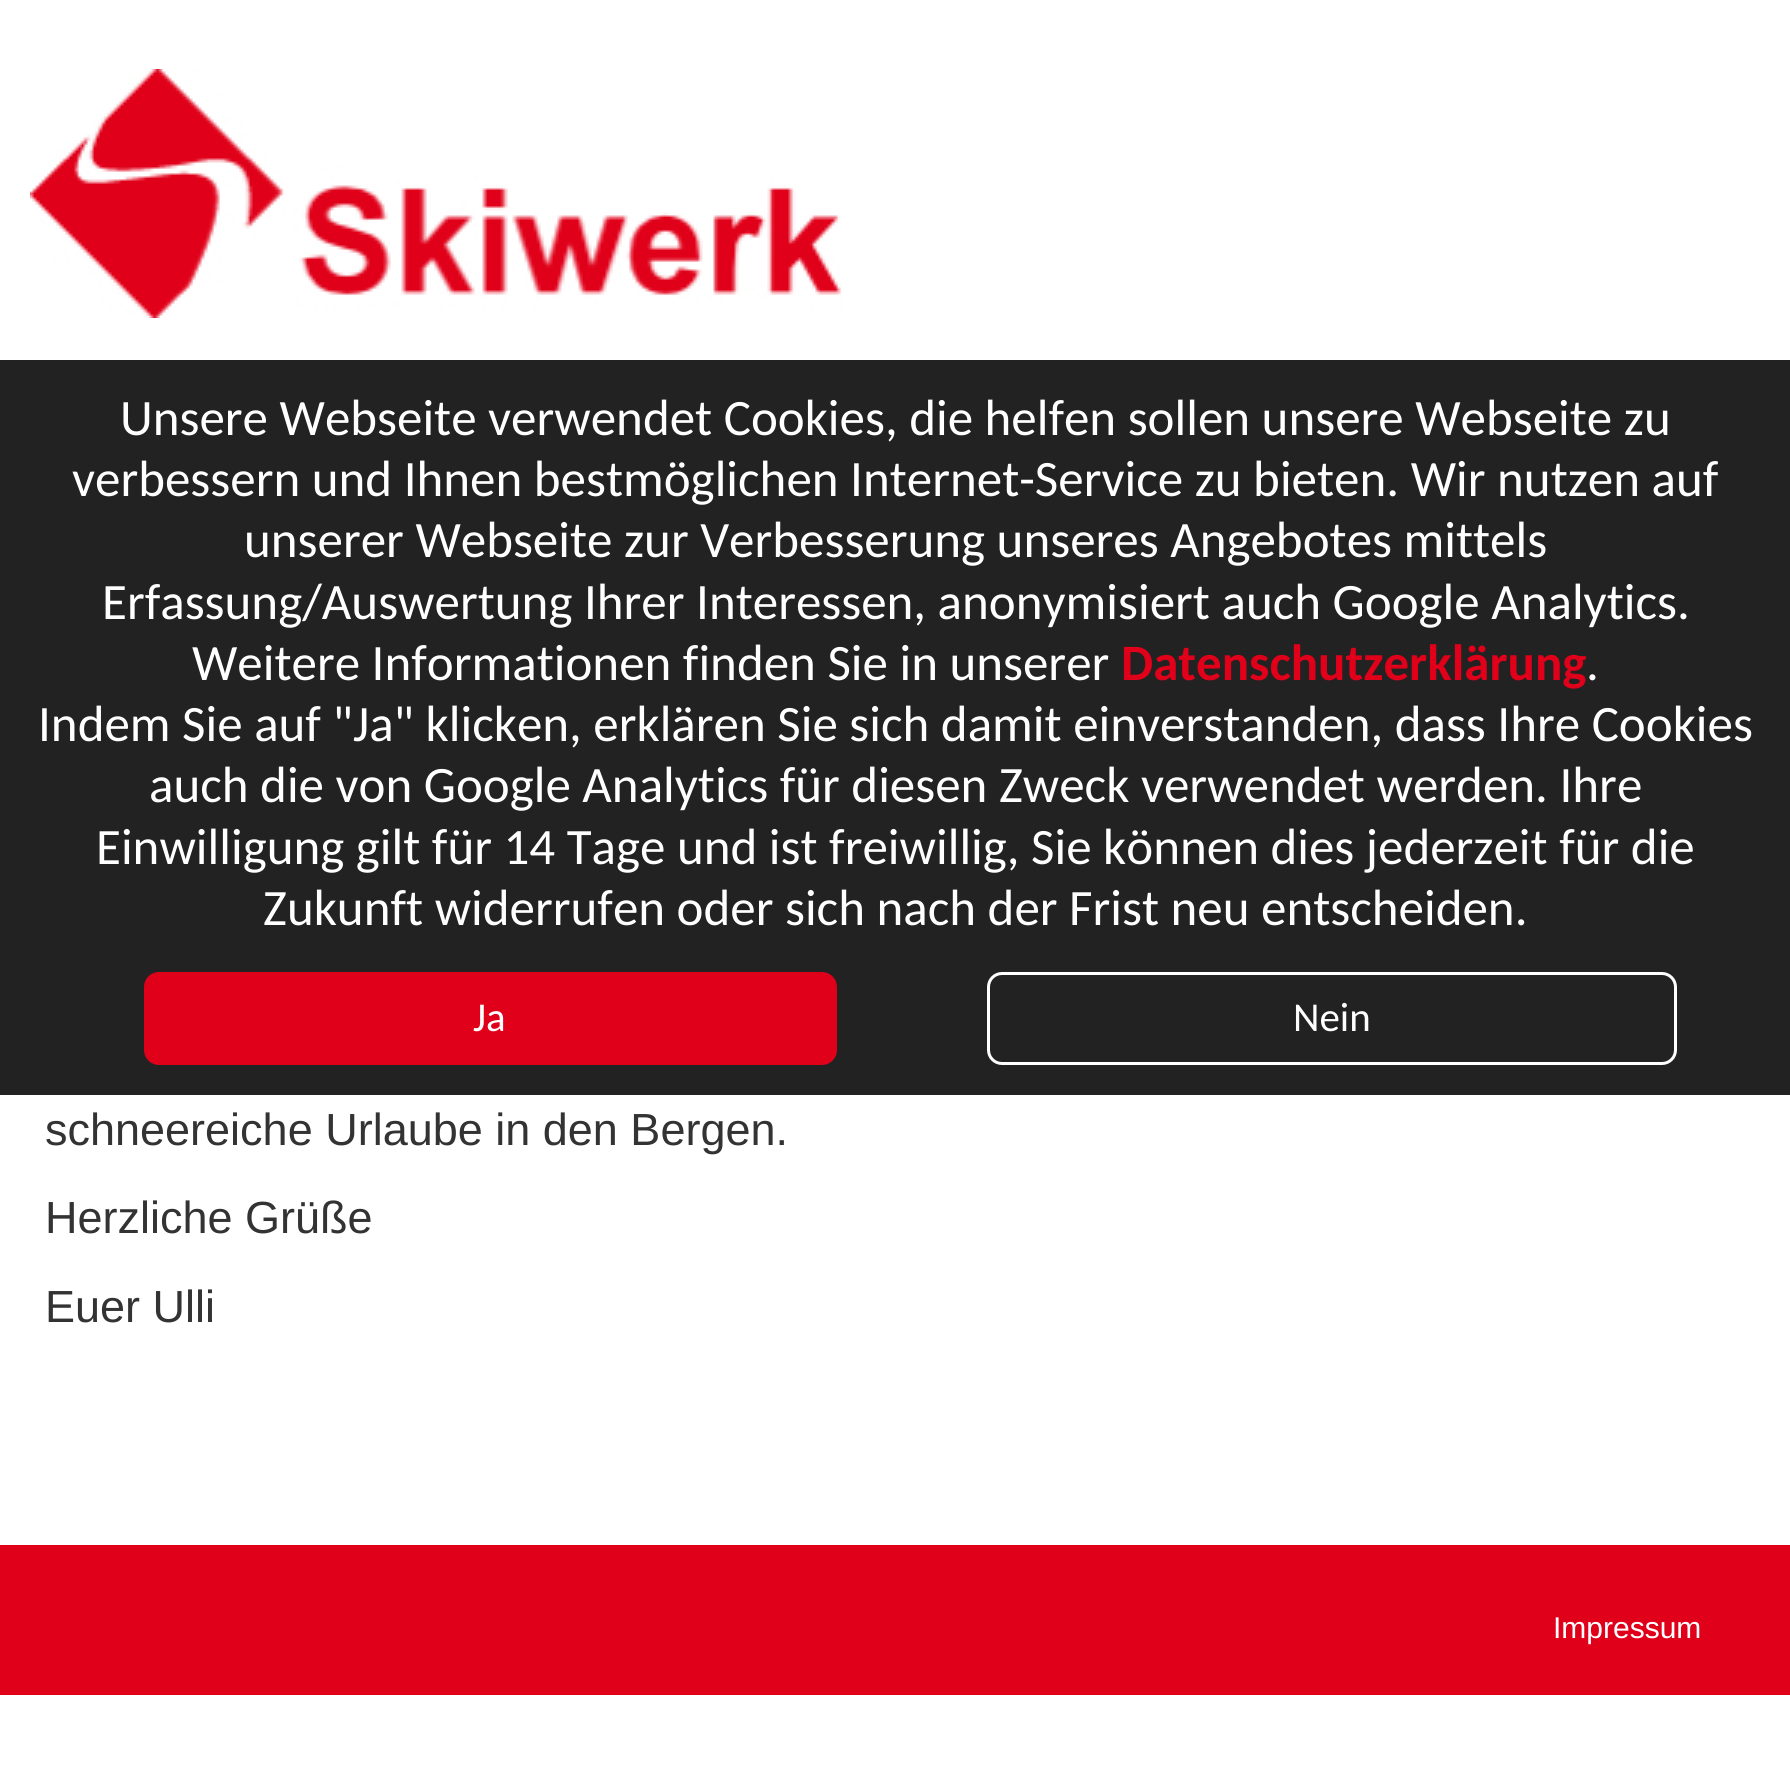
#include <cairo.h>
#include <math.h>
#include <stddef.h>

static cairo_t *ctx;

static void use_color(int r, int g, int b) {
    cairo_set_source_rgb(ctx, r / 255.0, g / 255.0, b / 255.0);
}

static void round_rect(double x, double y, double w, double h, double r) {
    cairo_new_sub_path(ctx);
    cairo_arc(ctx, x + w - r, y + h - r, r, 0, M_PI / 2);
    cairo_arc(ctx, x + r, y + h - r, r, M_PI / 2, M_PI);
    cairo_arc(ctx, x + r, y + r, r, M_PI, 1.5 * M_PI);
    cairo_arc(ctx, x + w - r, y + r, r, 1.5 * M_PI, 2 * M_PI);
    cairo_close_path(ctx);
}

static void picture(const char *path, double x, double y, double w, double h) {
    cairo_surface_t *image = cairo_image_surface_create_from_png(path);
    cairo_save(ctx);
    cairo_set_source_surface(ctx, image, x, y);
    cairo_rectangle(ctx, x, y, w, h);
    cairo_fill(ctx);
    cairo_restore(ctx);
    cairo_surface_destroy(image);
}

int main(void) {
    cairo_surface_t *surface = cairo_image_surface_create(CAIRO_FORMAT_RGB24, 1790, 1784);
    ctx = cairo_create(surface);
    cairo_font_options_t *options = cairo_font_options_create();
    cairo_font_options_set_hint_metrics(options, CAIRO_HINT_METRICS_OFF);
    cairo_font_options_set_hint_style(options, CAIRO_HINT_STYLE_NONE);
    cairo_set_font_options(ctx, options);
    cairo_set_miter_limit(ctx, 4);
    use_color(255, 255, 255);
    cairo_paint(ctx);
    picture("img1.png", 30, 69, 813, 249);
    use_color(225, 0, 25);
    cairo_rectangle(ctx, 0, 1545, 1790, 150);
    cairo_fill(ctx);
    use_color(34, 34, 34);
    cairo_rectangle(ctx, 0, 360, 1790, 735);
    cairo_fill(ctx);
    cairo_select_font_face(ctx, "Carlito", CAIRO_FONT_SLANT_NORMAL, CAIRO_FONT_WEIGHT_NORMAL);
    cairo_set_font_size(ctx, 51);
    use_color(255, 255, 255);
    cairo_move_to(ctx, 120, 435);
    cairo_show_text(ctx, "Unsere Webseite verwendet Cookies, die helfen sollen unsere Webseite zu");
    cairo_move_to(ctx, 72, 496);
    cairo_show_text(ctx, "verbessern und Ihnen bestmöglichen Internet-Service zu bieten. Wir nutzen auf");
    cairo_move_to(ctx, 244, 557);
    cairo_show_text(ctx, "unserer Webseite zur Verbesserung unseres Angebotes mittels");
    cairo_move_to(ctx, 102, 619);
    cairo_show_text(ctx, "Erfassung/Auswertung Ihrer Interessen, anonymisiert auch Google Analytics.");
    cairo_move_to(ctx, 192, 680);
    cairo_show_text(ctx, "Weitere Informationen finden Sie in unserer");
    cairo_select_font_face(ctx, "Carlito", CAIRO_FONT_SLANT_NORMAL, CAIRO_FONT_WEIGHT_BOLD);
    use_color(225, 0, 25);
    cairo_move_to(ctx, 1121, 680);
    cairo_show_text(ctx, "Datenschutzerklärung");
    cairo_select_font_face(ctx, "Carlito", CAIRO_FONT_SLANT_NORMAL, CAIRO_FONT_WEIGHT_NORMAL);
    use_color(255, 255, 255);
    cairo_move_to(ctx, 1586, 680);
    cairo_show_text(ctx, ".");
    cairo_move_to(ctx, 38, 741);
    cairo_show_text(ctx, "Indem Sie auf \"Ja\" klicken, erklären Sie sich damit einverstanden, dass Ihre Cookies");
    cairo_move_to(ctx, 149, 802);
    cairo_show_text(ctx, "auch die von Google Analytics für diesen Zweck verwendet werden. Ihre");
    cairo_move_to(ctx, 96, 864);
    cairo_show_text(ctx, "Einwilligung gilt für 14 Tage und ist freiwillig, Sie können dies jederzeit für die");
    cairo_move_to(ctx, 263, 925);
    cairo_show_text(ctx, "Zukunft widerrufen oder sich nach der Frist neu entscheiden.");
    use_color(225, 0, 25);
    round_rect(145.5, 973.5, 690, 90, 13.5);
    cairo_fill_preserve(ctx);
    cairo_set_line_width(ctx, 3);
    cairo_stroke(ctx);
    cairo_set_font_size(ctx, 41);
    use_color(255, 255, 255);
    cairo_move_to(ctx, 473, 1031);
    cairo_show_text(ctx, "Ja");
    round_rect(988.5, 973.5, 687, 90, 13.5);
    cairo_stroke(ctx);
    cairo_move_to(ctx, 1293, 1031);
    cairo_show_text(ctx, "Nein");
    cairo_select_font_face(ctx, "Liberation Sans", CAIRO_FONT_SLANT_NORMAL, CAIRO_FONT_WEIGHT_NORMAL);
    cairo_set_font_size(ctx, 30);
    cairo_move_to(ctx, 1553, 1638);
    cairo_show_text(ctx, "Impressum");
    cairo_set_font_size(ctx, 45);
    use_color(51, 51, 51);
    cairo_move_to(ctx, 45, 1145);
    cairo_show_text(ctx, "schneereiche Urlaube in den Bergen.");
    cairo_move_to(ctx, 45, 1233);
    cairo_show_text(ctx, "Herzliche Grüße");
    cairo_move_to(ctx, 45, 1322);
    cairo_show_text(ctx, "Euer Ulli");
    cairo_surface_write_to_png(surface, "result.png");
    cairo_font_options_destroy(options);
    cairo_destroy(ctx);
    cairo_surface_destroy(surface);
    return 0;
}
